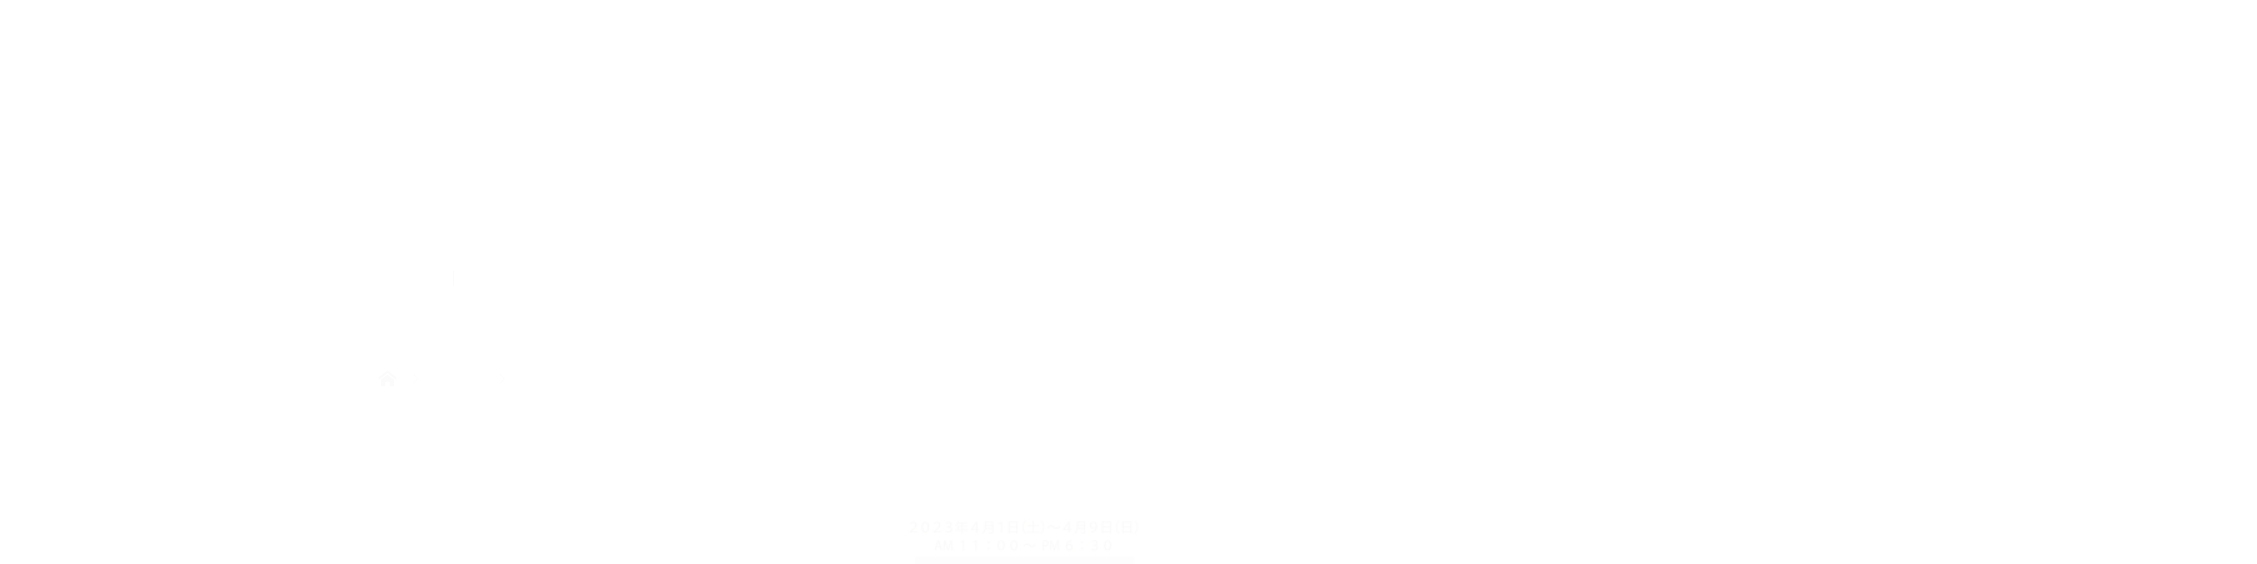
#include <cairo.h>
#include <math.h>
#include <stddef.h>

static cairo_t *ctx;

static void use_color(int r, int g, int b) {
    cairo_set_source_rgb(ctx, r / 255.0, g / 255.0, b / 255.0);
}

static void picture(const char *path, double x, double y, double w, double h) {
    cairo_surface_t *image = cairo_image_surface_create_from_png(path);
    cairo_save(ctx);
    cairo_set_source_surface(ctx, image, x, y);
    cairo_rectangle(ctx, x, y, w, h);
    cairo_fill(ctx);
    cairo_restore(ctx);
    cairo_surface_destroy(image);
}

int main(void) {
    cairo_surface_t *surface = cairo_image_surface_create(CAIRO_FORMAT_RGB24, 2257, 564);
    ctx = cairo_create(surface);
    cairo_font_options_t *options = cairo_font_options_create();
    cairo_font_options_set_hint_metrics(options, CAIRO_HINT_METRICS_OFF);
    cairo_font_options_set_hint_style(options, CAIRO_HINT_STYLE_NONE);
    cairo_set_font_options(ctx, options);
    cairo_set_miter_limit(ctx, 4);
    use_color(255, 255, 255);
    cairo_paint(ctx);
    use_color(251, 251, 251);
    cairo_rectangle(ctx, 453, 271, 1, 15);
    cairo_fill(ctx);
    picture("img1.png", 378, 370, 19, 17);
    picture("img2.png", 413, 373, 6, 11);
    picture("img3.png", 499, 374, 6, 10);
    picture("img4.png", 652, 487, 503, 77);
    cairo_surface_write_to_png(surface, "result.png");
    cairo_font_options_destroy(options);
    cairo_destroy(ctx);
    cairo_surface_destroy(surface);
    return 0;
}
